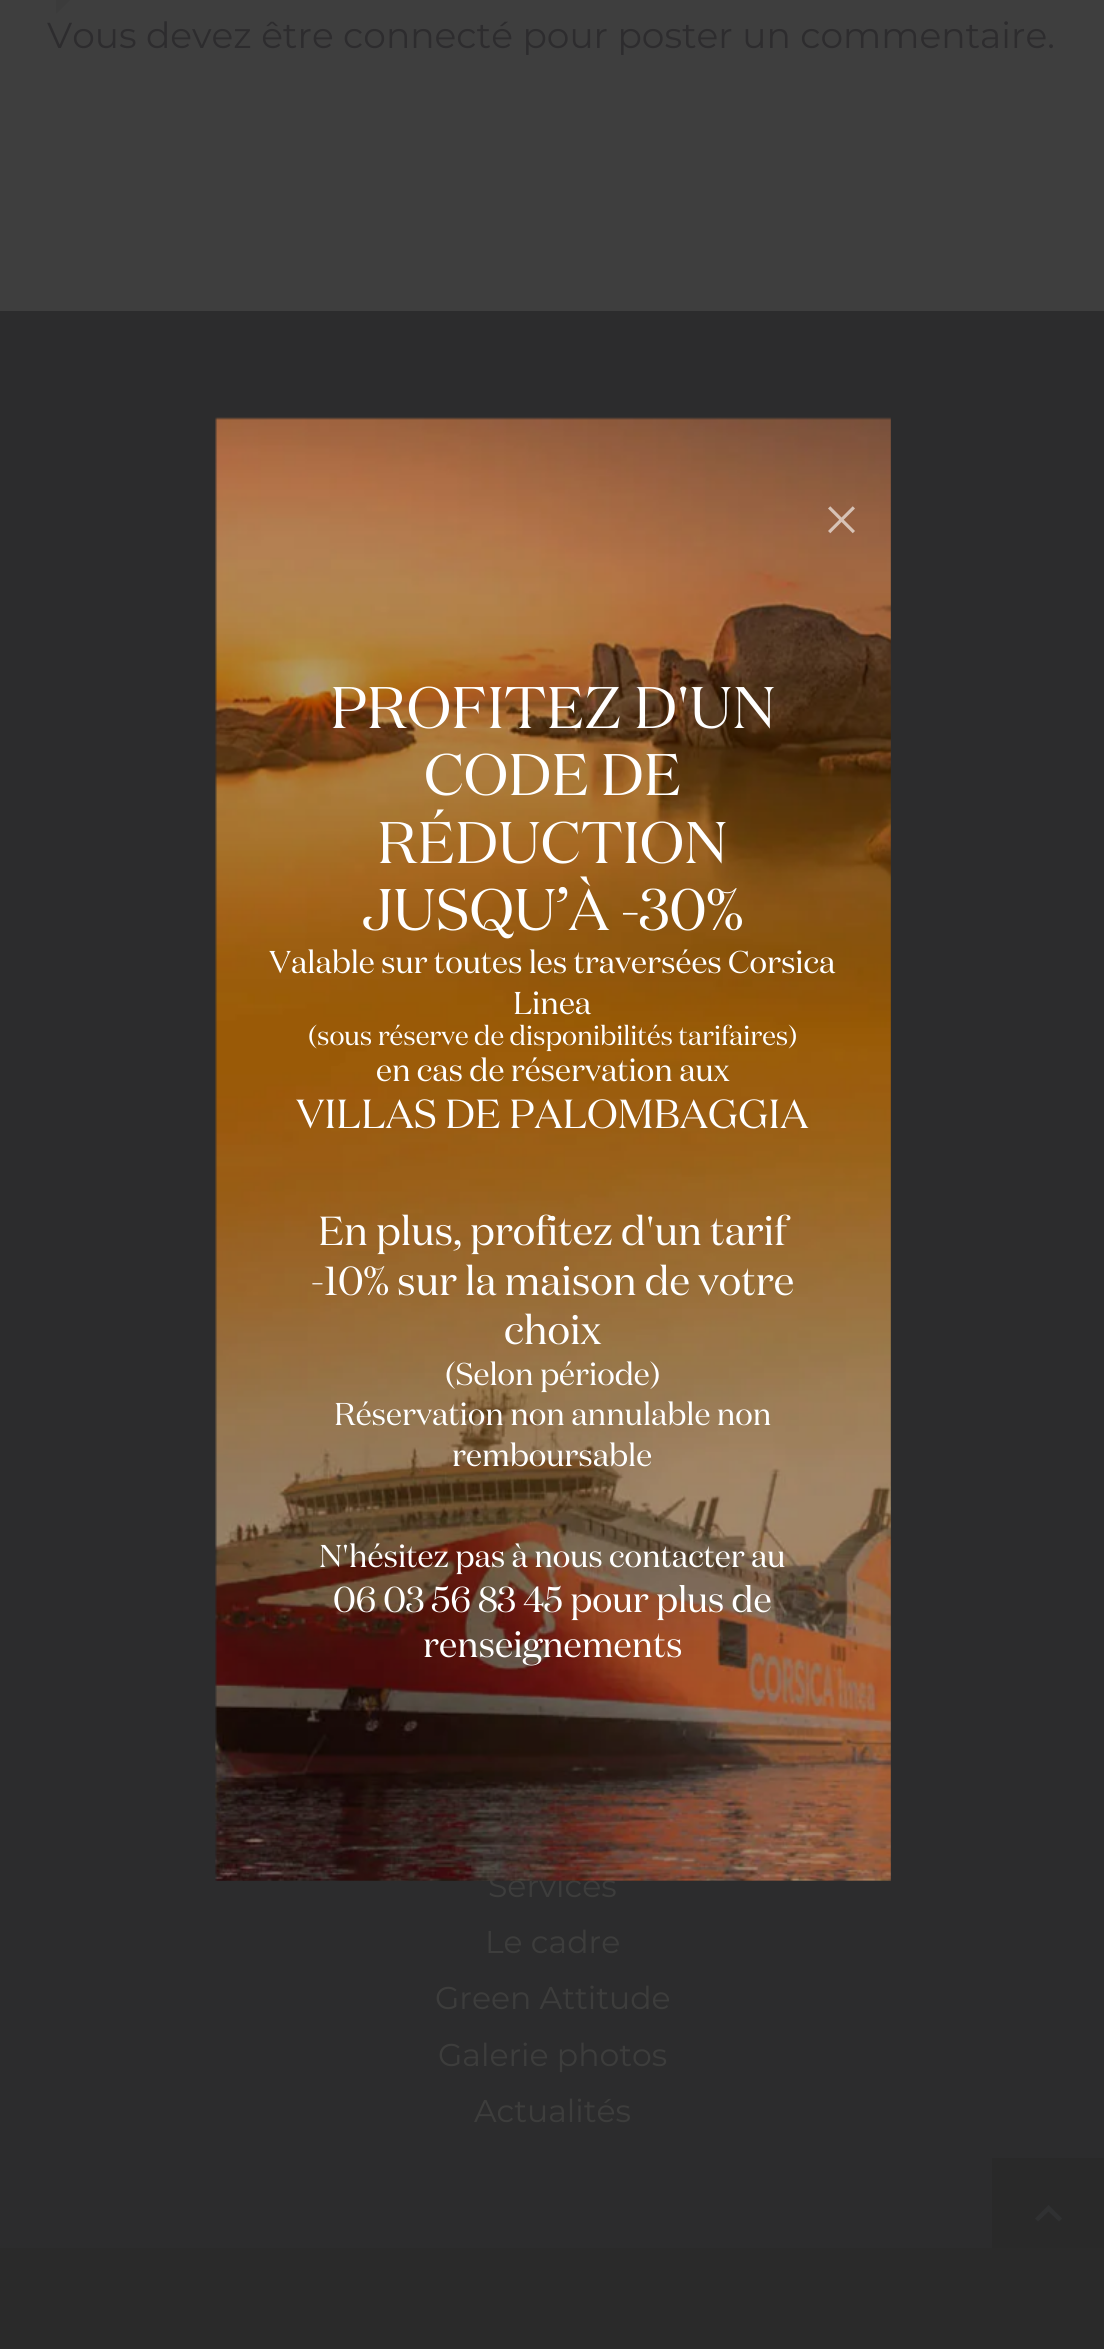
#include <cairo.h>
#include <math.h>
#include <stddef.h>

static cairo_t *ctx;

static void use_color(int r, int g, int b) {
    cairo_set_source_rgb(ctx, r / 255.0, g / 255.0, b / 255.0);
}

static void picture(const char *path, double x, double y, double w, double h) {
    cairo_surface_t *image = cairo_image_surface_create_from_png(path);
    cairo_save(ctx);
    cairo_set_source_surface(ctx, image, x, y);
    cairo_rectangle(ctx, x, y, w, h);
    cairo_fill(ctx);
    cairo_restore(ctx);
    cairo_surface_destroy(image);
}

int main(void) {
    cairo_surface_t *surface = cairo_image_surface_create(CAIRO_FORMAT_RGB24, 1104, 2349);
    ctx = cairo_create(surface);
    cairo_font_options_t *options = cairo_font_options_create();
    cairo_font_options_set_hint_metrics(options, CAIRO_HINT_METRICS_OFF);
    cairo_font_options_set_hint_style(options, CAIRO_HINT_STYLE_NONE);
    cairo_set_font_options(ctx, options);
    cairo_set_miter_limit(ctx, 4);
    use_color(62, 62, 62);
    cairo_paint(ctx);
    use_color(59, 59, 59);
    cairo_new_path(ctx);
    cairo_move_to(ctx, 137, -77);
    cairo_line_to(ctx, 77, -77);
    cairo_curve_to(ctx, 55, -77, 56, -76, 56, -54);
    cairo_line_to(ctx, 56, 14);
    cairo_line_to(ctx, 74, -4);
    cairo_line_to(ctx, 127, -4);
    cairo_curve_to(ctx, 145, -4, 146, -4, 146, -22);
    cairo_line_to(ctx, 146, -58);
    cairo_curve_to(ctx, 146, -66, 148, -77, 137, -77);
    cairo_close_path(ctx);
    cairo_move_to(ctx, 137, -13);
    cairo_line_to(ctx, 74, -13);
    cairo_line_to(ctx, 65, -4);
    cairo_line_to(ctx, 65, -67);
    cairo_line_to(ctx, 137, -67);
    cairo_close_path(ctx);
    cairo_fill(ctx);
    cairo_select_font_face(ctx, "Montserrat", CAIRO_FONT_SLANT_NORMAL, CAIRO_FONT_WEIGHT_NORMAL);
    cairo_set_font_size(ctx, 36);
    use_color(45, 44, 46);
    cairo_move_to(ctx, 47, 48);
    cairo_show_text(ctx, "Vous devez être connecté pour poster un commentaire.");
    use_color(44, 44, 45);
    cairo_rectangle(ctx, 0, 311, 1104, 1937);
    cairo_fill(ctx);
    cairo_set_font_size(ctx, 31.5);
    use_color(61, 61, 60);
    cairo_move_to(ctx, 488, 1897);
    cairo_show_text(ctx, "Services");
    cairo_move_to(ctx, 485, 1953);
    cairo_show_text(ctx, "Le cadre");
    cairo_move_to(ctx, 435, 2009);
    cairo_show_text(ctx, "Green Attitude");
    cairo_move_to(ctx, 438, 2066);
    cairo_show_text(ctx, "Galerie photos");
    cairo_move_to(ctx, 474, 2122);
    cairo_show_text(ctx, "Actualités");
    use_color(42, 42, 42);
    cairo_rectangle(ctx, 0, 2248, 1104, 101);
    cairo_fill(ctx);
    cairo_set_source_rgba(ctx, 0.149, 0.149, 0.149, 0.5);
    cairo_rectangle(ctx, 992, 2158, 112, 90);
    cairo_fill(ctx);
    use_color(48, 49, 50);
    cairo_new_path(ctx);
    cairo_move_to(ctx, 1038, 2221.5);
    cairo_line_to(ctx, 1048.5, 2211.5);
    cairo_line_to(ctx, 1059, 2221.5);
    cairo_line_to(ctx, 1062, 2218.5);
    cairo_line_to(ctx, 1048.5, 2205);
    cairo_line_to(ctx, 1035, 2218.5);
    cairo_close_path(ctx);
    cairo_fill(ctx);
    picture("img2.png", 215, 417, 676, 1464);
    picture("img1.png", 828, 506, 27, 28);
    cairo_select_font_face(ctx, "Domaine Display", CAIRO_FONT_SLANT_NORMAL, CAIRO_FONT_WEIGHT_NORMAL);
    cairo_set_font_size(ctx, 58.5);
    use_color(255, 255, 255);
    cairo_move_to(ctx, 330, 728);
    cairo_show_text(ctx, "PROFITEZ D'UN");
    cairo_move_to(ctx, 424, 795);
    cairo_show_text(ctx, "CODE DE");
    cairo_move_to(ctx, 377, 863);
    cairo_show_text(ctx, "RÉDUCTION");
    cairo_move_to(ctx, 362, 930);
    cairo_show_text(ctx, "JUSQU’À -30%");
    cairo_set_font_size(ctx, 31.5);
    cairo_move_to(ctx, 269, 973);
    cairo_show_text(ctx, "Valable sur toutes les traversées Corsica");
    cairo_move_to(ctx, 513, 1014);
    cairo_show_text(ctx, "Linea");
    cairo_set_font_size(ctx, 27);
    cairo_move_to(ctx, 308, 1045);
    cairo_show_text(ctx, "(sous réserve de disponibilités tarifaires)");
    cairo_set_font_size(ctx, 31.5);
    cairo_move_to(ctx, 376, 1081);
    cairo_show_text(ctx, "en cas de réservation aux");
    cairo_set_font_size(ctx, 40.5);
    cairo_move_to(ctx, 296, 1128);
    cairo_show_text(ctx, "VILLAS DE PALOMBAGGIA");
    cairo_move_to(ctx, 318, 1245);
    cairo_show_text(ctx, "En plus, profitez d'un tarif");
    cairo_move_to(ctx, 311, 1295);
    cairo_show_text(ctx, "-10% sur la maison de votre");
    cairo_move_to(ctx, 504, 1344);
    cairo_show_text(ctx, "choix");
    cairo_set_font_size(ctx, 31.5);
    cairo_move_to(ctx, 445, 1385);
    cairo_show_text(ctx, "(Selon période)");
    cairo_move_to(ctx, 334, 1425);
    cairo_show_text(ctx, "Réservation non annulable non");
    cairo_move_to(ctx, 452, 1466);
    cairo_show_text(ctx, "remboursable");
    cairo_move_to(ctx, 319, 1567);
    cairo_show_text(ctx, "N'hésitez pas à nous contacter au");
    cairo_set_font_size(ctx, 36);
    cairo_move_to(ctx, 333, 1612);
    cairo_show_text(ctx, "06 03 56 83 45 pour plus de");
    cairo_move_to(ctx, 423, 1657);
    cairo_show_text(ctx, "renseignements");
    cairo_surface_write_to_png(surface, "result.png");
    cairo_font_options_destroy(options);
    cairo_destroy(ctx);
    cairo_surface_destroy(surface);
    return 0;
}
